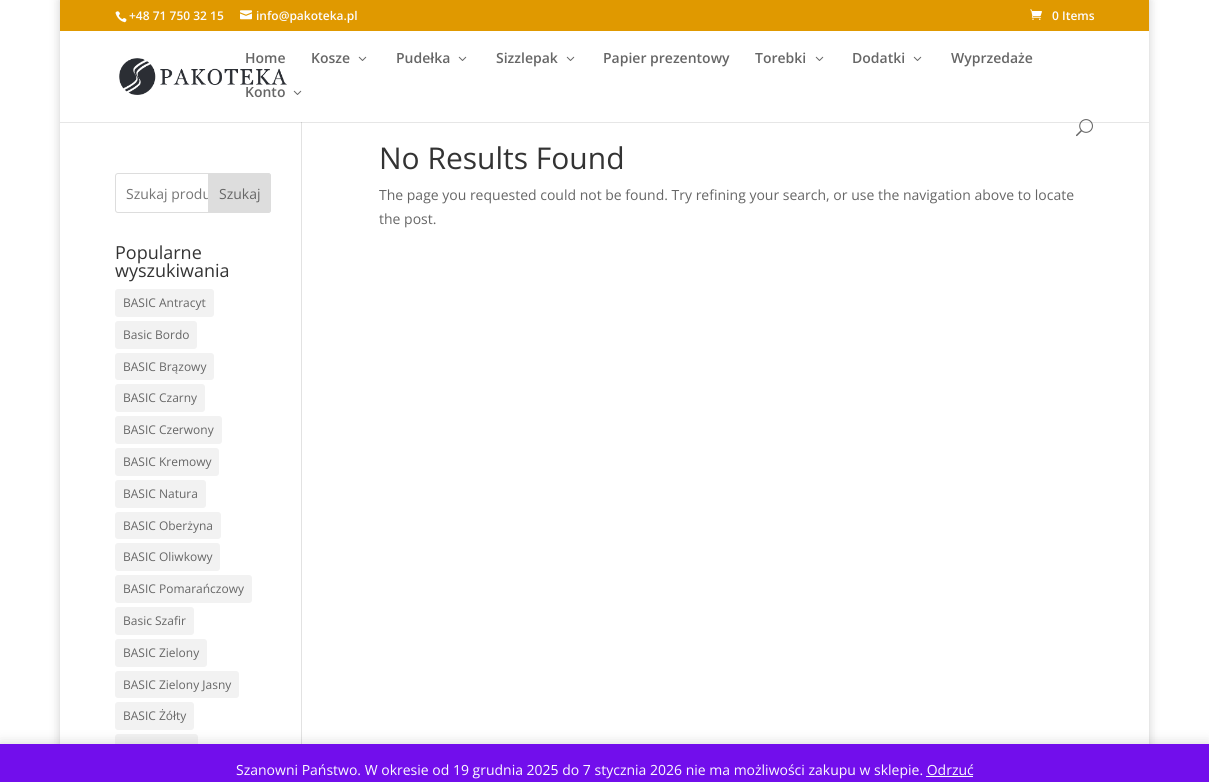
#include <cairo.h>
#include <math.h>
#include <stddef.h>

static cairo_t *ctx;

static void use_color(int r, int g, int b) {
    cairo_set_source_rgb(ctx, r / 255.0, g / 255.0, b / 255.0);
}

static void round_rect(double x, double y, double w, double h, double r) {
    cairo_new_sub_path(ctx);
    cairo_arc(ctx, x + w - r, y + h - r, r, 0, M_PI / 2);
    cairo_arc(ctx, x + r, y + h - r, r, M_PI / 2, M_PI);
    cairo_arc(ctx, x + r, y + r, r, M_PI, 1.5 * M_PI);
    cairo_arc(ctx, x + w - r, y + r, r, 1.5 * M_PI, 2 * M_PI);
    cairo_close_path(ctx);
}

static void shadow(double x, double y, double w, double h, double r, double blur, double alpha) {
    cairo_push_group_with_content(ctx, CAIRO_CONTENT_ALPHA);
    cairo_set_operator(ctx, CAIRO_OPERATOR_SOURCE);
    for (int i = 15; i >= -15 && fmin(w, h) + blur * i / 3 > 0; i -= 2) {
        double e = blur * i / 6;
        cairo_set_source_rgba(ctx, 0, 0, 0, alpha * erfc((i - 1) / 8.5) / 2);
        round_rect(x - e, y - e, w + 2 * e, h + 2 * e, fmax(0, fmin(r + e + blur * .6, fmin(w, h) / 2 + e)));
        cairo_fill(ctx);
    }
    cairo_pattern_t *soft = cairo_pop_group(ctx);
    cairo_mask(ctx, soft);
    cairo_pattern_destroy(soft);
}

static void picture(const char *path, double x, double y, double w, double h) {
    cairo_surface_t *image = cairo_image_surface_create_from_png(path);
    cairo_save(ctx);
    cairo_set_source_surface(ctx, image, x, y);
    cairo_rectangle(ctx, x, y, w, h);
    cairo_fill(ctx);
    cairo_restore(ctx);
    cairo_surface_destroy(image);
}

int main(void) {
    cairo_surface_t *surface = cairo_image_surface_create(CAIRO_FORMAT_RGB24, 1209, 782);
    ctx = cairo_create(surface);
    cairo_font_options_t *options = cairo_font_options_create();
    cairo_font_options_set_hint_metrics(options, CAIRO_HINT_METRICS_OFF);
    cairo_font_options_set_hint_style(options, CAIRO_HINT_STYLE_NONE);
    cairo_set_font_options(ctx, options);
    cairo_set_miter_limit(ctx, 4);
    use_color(255, 255, 255);
    cairo_paint(ctx);
    use_color(230, 230, 230);
    cairo_rectangle(ctx, 60, 122, 1089, 1);
    cairo_fill(ctx);
    cairo_save(ctx);
    cairo_set_fill_rule(ctx, CAIRO_FILL_RULE_EVEN_ODD);
    cairo_new_path(ctx);
    cairo_move_to(ctx, 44, 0);
    cairo_line_to(ctx, 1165, 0);
    cairo_line_to(ctx, 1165, 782);
    cairo_line_to(ctx, 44, 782);
    cairo_close_path(ctx);
    cairo_move_to(ctx, 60, 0);
    cairo_line_to(ctx, 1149, 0);
    cairo_line_to(ctx, 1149, 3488);
    cairo_line_to(ctx, 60, 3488);
    cairo_close_path(ctx);
    cairo_clip(ctx);
    use_color(0, 0, 0);
    shadow(60, 0, 1089, 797, 0, 5, 0.2);
    cairo_restore(ctx);
    use_color(224, 153, 0);
    cairo_rectangle(ctx, 60, 0, 1089, 31);
    cairo_fill(ctx);
    picture("img1.png", 115, 11, 12, 12);
    cairo_select_font_face(ctx, "Open Sans SemiBold", CAIRO_FONT_SLANT_NORMAL, CAIRO_FONT_WEIGHT_NORMAL);
    cairo_set_font_size(ctx, 12);
    use_color(252, 251, 254);
    cairo_move_to(ctx, 129, 20);
    cairo_show_text(ctx, "+48 71 750 32 15");
    picture("img2.png", 240, 10, 12, 10);
    cairo_move_to(ctx, 256, 20);
    cairo_show_text(ctx, "info@pakoteka.pl");
    picture("img3.png", 1030, 9, 12, 11);
    cairo_move_to(ctx, 1052, 20);
    cairo_show_text(ctx, "0 Items");
    picture("img4.png", 119, 58, 168, 37);
    cairo_set_font_size(ctx, 14);
    use_color(102, 102, 102);
    cairo_move_to(ctx, 245, 63);
    cairo_show_text(ctx, "Home");
    cairo_move_to(ctx, 311, 63);
    cairo_show_text(ctx, "Kosze");
    picture("img5.png", 358, 56, 9, 5);
    cairo_move_to(ctx, 396, 63);
    cairo_show_text(ctx, "Pudełka");
    picture("img5.png", 458, 56, 9, 5);
    cairo_move_to(ctx, 496, 63);
    cairo_show_text(ctx, "Sizzlepak");
    picture("img5.png", 566, 56, 9, 5);
    cairo_move_to(ctx, 603, 63);
    cairo_show_text(ctx, "Papier prezentowy");
    cairo_move_to(ctx, 755, 63);
    cairo_show_text(ctx, "Torebki");
    picture("img5.png", 815, 56, 9, 5);
    cairo_move_to(ctx, 852, 63);
    cairo_show_text(ctx, "Dodatki");
    picture("img5.png", 913, 56, 9, 5);
    cairo_move_to(ctx, 951, 63);
    cairo_show_text(ctx, "Wyprzedaże");
    cairo_move_to(ctx, 245, 97);
    cairo_show_text(ctx, "Konto");
    picture("img5.png", 293, 90, 9, 5);
    picture("img6.png", 1076, 119, 17, 18);
    use_color(226, 226, 226);
    cairo_rectangle(ctx, 301, 123, 1, 621);
    cairo_fill(ctx);
    use_color(203, 203, 203);
    cairo_rectangle(ctx, 301, 122, 1, 1);
    cairo_fill(ctx);
    round_rect(115.5, 173.5, 155, 39, 2.5);
    use_color(221, 221, 221);
    cairo_set_line_width(ctx, 1);
    cairo_stroke(ctx);
    cairo_select_font_face(ctx, "Open Sans", CAIRO_FONT_SLANT_NORMAL, CAIRO_FONT_WEIGHT_NORMAL);
    use_color(117, 117, 117);
    cairo_move_to(ctx, 126, 199);
    cairo_show_text(ctx, "Szukaj produ");
    use_color(221, 221, 221);
    cairo_new_path(ctx);
    cairo_move_to(ctx, 208.5, 173.5);
    cairo_line_to(ctx, 268, 173.5);
    cairo_curve_to(ctx, 269.5, 173.5, 270.5, 174.5, 270.5, 176);
    cairo_line_to(ctx, 270.5, 210);
    cairo_curve_to(ctx, 270.5, 211.5, 269.5, 212.5, 268, 212.5);
    cairo_line_to(ctx, 208.5, 212.5);
    cairo_close_path(ctx);
    cairo_fill_preserve(ctx);
    cairo_stroke(ctx);
    use_color(102, 102, 102);
    cairo_move_to(ctx, 219, 199);
    cairo_show_text(ctx, "Szukaj");
    cairo_set_font_size(ctx, 18);
    use_color(51, 51, 51);
    cairo_move_to(ctx, 115, 259);
    cairo_show_text(ctx, "Popularne");
    cairo_move_to(ctx, 115, 277);
    cairo_show_text(ctx, "wyszukiwania");
    use_color(242, 242, 242);
    round_rect(115, 289, 99, 28, 3);
    cairo_fill(ctx);
    cairo_set_font_size(ctx, 12);
    use_color(102, 102, 102);
    cairo_move_to(ctx, 123, 307);
    cairo_show_text(ctx, "BASIC Antracyt");
    use_color(242, 242, 242);
    round_rect(115, 321, 82, 28, 3);
    cairo_fill(ctx);
    use_color(102, 102, 102);
    cairo_move_to(ctx, 123, 339);
    cairo_show_text(ctx, "Basic Bordo");
    use_color(242, 242, 242);
    round_rect(115, 353, 99, 27, 3);
    cairo_fill(ctx);
    use_color(102, 102, 102);
    cairo_move_to(ctx, 123, 371);
    cairo_show_text(ctx, "BASIC Brązowy");
    use_color(242, 242, 242);
    round_rect(115, 384, 90, 28, 3);
    cairo_fill(ctx);
    use_color(102, 102, 102);
    cairo_move_to(ctx, 123, 402);
    cairo_show_text(ctx, "BASIC Czarny");
    use_color(242, 242, 242);
    round_rect(115, 416, 107, 28, 3);
    cairo_fill(ctx);
    use_color(102, 102, 102);
    cairo_move_to(ctx, 123, 434);
    cairo_show_text(ctx, "BASIC Czerwony");
    use_color(242, 242, 242);
    round_rect(115, 448, 104, 28, 3);
    cairo_fill(ctx);
    use_color(102, 102, 102);
    cairo_move_to(ctx, 123, 466);
    cairo_show_text(ctx, "BASIC Kremowy");
    use_color(242, 242, 242);
    round_rect(115, 480, 91, 28, 3);
    cairo_fill(ctx);
    use_color(102, 102, 102);
    cairo_move_to(ctx, 123, 498);
    cairo_show_text(ctx, "BASIC Natura");
    use_color(242, 242, 242);
    round_rect(115, 512, 106, 27, 3);
    cairo_fill(ctx);
    use_color(102, 102, 102);
    cairo_move_to(ctx, 123, 530);
    cairo_show_text(ctx, "BASIC Oberżyna");
    use_color(242, 242, 242);
    round_rect(115, 543, 105, 28, 3);
    cairo_fill(ctx);
    use_color(102, 102, 102);
    cairo_move_to(ctx, 123, 561);
    cairo_show_text(ctx, "BASIC Oliwkowy");
    use_color(242, 242, 242);
    round_rect(115, 575, 137, 28, 3);
    cairo_fill(ctx);
    use_color(102, 102, 102);
    cairo_move_to(ctx, 123, 593);
    cairo_show_text(ctx, "BASIC Pomarańczowy");
    use_color(242, 242, 242);
    round_rect(115, 607, 79, 28, 3);
    cairo_fill(ctx);
    use_color(102, 102, 102);
    cairo_move_to(ctx, 123, 625);
    cairo_show_text(ctx, "Basic Szafir");
    use_color(242, 242, 242);
    round_rect(115, 639, 92, 28, 3);
    cairo_fill(ctx);
    use_color(102, 102, 102);
    cairo_move_to(ctx, 123, 657);
    cairo_show_text(ctx, "BASIC Zielony");
    use_color(242, 242, 242);
    round_rect(115, 671, 124, 27, 3);
    cairo_fill(ctx);
    use_color(102, 102, 102);
    cairo_move_to(ctx, 123, 689);
    cairo_show_text(ctx, "BASIC Zielony Jasny");
    use_color(242, 242, 242);
    round_rect(115, 702, 79, 28, 3);
    cairo_fill(ctx);
    use_color(102, 102, 102);
    cairo_move_to(ctx, 123, 720);
    cairo_show_text(ctx, "BASIC Żółty");
    use_color(242, 242, 242);
    round_rect(115, 734, 83, 28, 3);
    cairo_fill(ctx);
    cairo_set_font_size(ctx, 30);
    use_color(51, 51, 51);
    cairo_move_to(ctx, 379, 169);
    cairo_show_text(ctx, "No Results Found");
    cairo_set_font_size(ctx, 14);
    use_color(102, 102, 102);
    cairo_move_to(ctx, 379, 200);
    cairo_show_text(ctx, "The page you requested could not be found. Try refining your search, or use the navigation above to locate");
    cairo_move_to(ctx, 379, 224);
    cairo_show_text(ctx, "the post.");
    use_color(0, 0, 0);
    shadow(0, 745, 1209, 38, 0, 7, 0.2);
    use_color(114, 14, 236);
    cairo_rectangle(ctx, 0, 744, 1209, 38);
    cairo_fill(ctx);
    use_color(252, 251, 254);
    cairo_move_to(ctx, 236, 775);
    cairo_show_text(ctx, "Szanowni Państwo. W okresie od 19 grudnia 2025 do 7 stycznia 2026 nie ma możliwości zakupu w sklepie. Odrzuć");
    cairo_rectangle(ctx, 926, 776, 47, 1);
    cairo_fill(ctx);
    cairo_surface_write_to_png(surface, "result.png");
    cairo_font_options_destroy(options);
    cairo_destroy(ctx);
    cairo_surface_destroy(surface);
    return 0;
}
